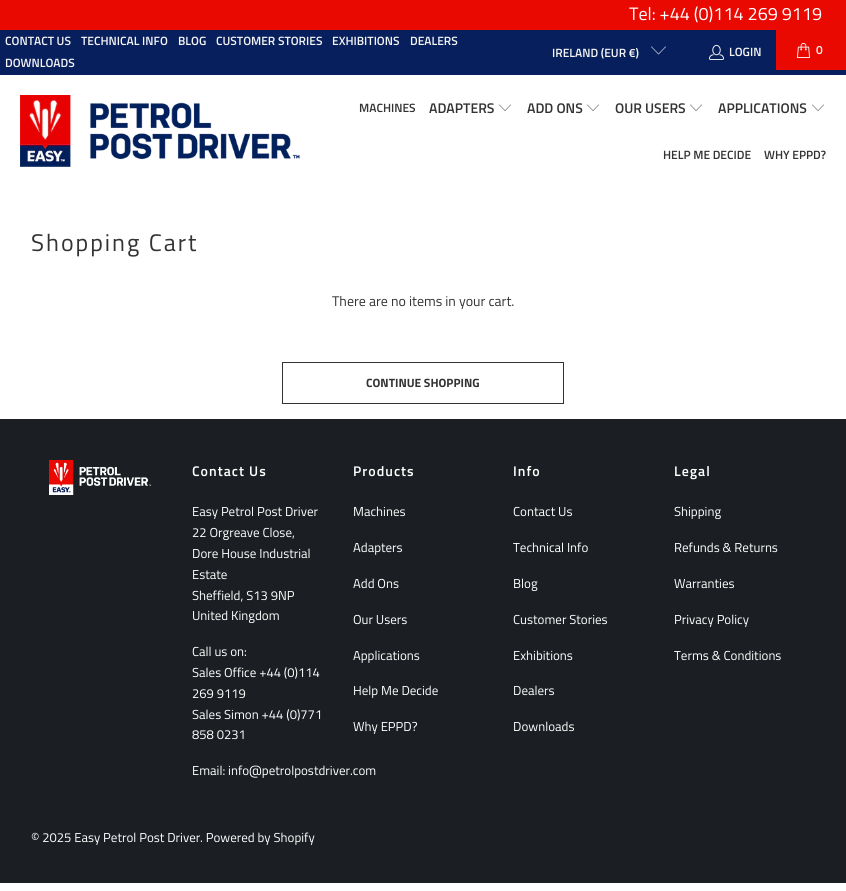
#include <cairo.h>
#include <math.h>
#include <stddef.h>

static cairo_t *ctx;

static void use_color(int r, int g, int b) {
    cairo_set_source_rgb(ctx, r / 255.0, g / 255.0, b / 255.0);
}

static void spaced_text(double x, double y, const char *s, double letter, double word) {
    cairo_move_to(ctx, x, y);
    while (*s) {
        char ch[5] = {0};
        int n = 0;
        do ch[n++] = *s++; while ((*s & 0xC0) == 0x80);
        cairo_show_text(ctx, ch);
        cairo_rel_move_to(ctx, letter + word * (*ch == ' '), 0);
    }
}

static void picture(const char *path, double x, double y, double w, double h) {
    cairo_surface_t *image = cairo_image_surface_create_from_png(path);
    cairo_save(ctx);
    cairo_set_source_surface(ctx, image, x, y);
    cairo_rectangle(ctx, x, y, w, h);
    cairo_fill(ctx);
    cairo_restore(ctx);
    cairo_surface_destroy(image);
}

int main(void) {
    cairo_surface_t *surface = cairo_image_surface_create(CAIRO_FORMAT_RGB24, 846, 891);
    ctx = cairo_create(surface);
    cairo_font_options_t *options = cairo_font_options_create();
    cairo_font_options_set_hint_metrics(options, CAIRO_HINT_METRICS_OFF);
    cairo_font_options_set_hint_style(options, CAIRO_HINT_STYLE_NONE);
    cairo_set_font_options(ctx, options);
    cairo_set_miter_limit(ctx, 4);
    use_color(255, 255, 255);
    cairo_paint(ctx);
    use_color(233, 9, 1);
    cairo_rectangle(ctx, 0, 0, 846, 30);
    cairo_fill(ctx);
    cairo_select_font_face(ctx, "Titillium Web", CAIRO_FONT_SLANT_NORMAL, CAIRO_FONT_WEIGHT_NORMAL);
    cairo_set_font_size(ctx, 18);
    use_color(255, 255, 255);
    cairo_move_to(ctx, 629, 20);
    cairo_show_text(ctx, "Tel: +44 (0)114 269 9119");
    use_color(7, 31, 93);
    cairo_rectangle(ctx, 0, 30, 846, 45);
    cairo_fill(ctx);
    cairo_select_font_face(ctx, "Titillium Web SemiBold", CAIRO_FONT_SLANT_NORMAL, CAIRO_FONT_WEIGHT_NORMAL);
    cairo_set_font_size(ctx, 12);
    use_color(244, 244, 244);
    cairo_move_to(ctx, 5, 45);
    cairo_show_text(ctx, "CONTACT US");
    cairo_move_to(ctx, 81, 45);
    cairo_show_text(ctx, "TECHNICAL INFO");
    cairo_move_to(ctx, 178, 45);
    cairo_show_text(ctx, "BLOG");
    cairo_move_to(ctx, 216, 45);
    cairo_show_text(ctx, "CUSTOMER STORIES");
    cairo_move_to(ctx, 332, 45);
    cairo_show_text(ctx, "EXHIBITIONS");
    cairo_move_to(ctx, 410, 45);
    cairo_show_text(ctx, "DEALERS");
    cairo_move_to(ctx, 5, 67);
    cairo_show_text(ctx, "DOWNLOADS");
    cairo_move_to(ctx, 552, 57);
    cairo_show_text(ctx, "IRELAND (EUR €)");
    picture("img1.png", 651, 46, 15, 9);
    picture("img2.png", 709, 44, 15, 16);
    cairo_move_to(ctx, 729, 56);
    cairo_show_text(ctx, "LOGIN");
    use_color(233, 9, 1);
    cairo_rectangle(ctx, 776, 30, 70, 40);
    cairo_fill(ctx);
    picture("img3.png", 796, 43, 15, 15);
    use_color(244, 244, 244);
    cairo_move_to(ctx, 816, 54);
    cairo_show_text(ctx, "0");
    picture("img4.png", 20, 95, 280, 72);
    use_color(51, 51, 51);
    cairo_move_to(ctx, 359, 112);
    cairo_show_text(ctx, "MACHINES");
    cairo_set_font_size(ctx, 14);
    cairo_move_to(ctx, 429, 113);
    cairo_show_text(ctx, "ADAPTERS");
    picture("img5.png", 499, 104, 12, 7);
    cairo_move_to(ctx, 527, 113);
    cairo_show_text(ctx, "ADD ONS");
    picture("img5.png", 587, 104, 12, 7);
    cairo_move_to(ctx, 615, 113);
    cairo_show_text(ctx, "OUR USERS");
    picture("img5.png", 690, 104, 12, 7);
    cairo_move_to(ctx, 718, 113);
    cairo_show_text(ctx, "APPLICATIONS");
    picture("img5.png", 812, 104, 12, 7);
    cairo_set_font_size(ctx, 12);
    cairo_move_to(ctx, 663, 159);
    cairo_show_text(ctx, "HELP ME DECIDE");
    cairo_move_to(ctx, 764, 159);
    cairo_show_text(ctx, "WHY EPPD?");
    cairo_select_font_face(ctx, "Titillium Web", CAIRO_FONT_SLANT_NORMAL, CAIRO_FONT_WEIGHT_NORMAL);
    cairo_set_font_size(ctx, 24);
    spaced_text(31, 251, "Shopping Cart", 2, 0);
    cairo_set_font_size(ctx, 14);
    cairo_move_to(ctx, 332, 306);
    cairo_show_text(ctx, "There are no items in your cart.");
    cairo_rectangle(ctx, 282.5, 362.5, 281, 41);
    cairo_set_line_width(ctx, 1);
    cairo_stroke(ctx);
    cairo_select_font_face(ctx, "Titillium Web", CAIRO_FONT_SLANT_NORMAL, CAIRO_FONT_WEIGHT_BOLD);
    cairo_set_font_size(ctx, 12);
    cairo_move_to(ctx, 366, 387);
    cairo_show_text(ctx, "CONTINUE SHOPPING");
    use_color(27, 31, 35);
    cairo_rectangle(ctx, 0, 419, 846, 464);
    cairo_fill(ctx);
    picture("img6.png", 49, 460, 103, 35);
    cairo_select_font_face(ctx, "Titillium Web SemiBold", CAIRO_FONT_SLANT_NORMAL, CAIRO_FONT_WEIGHT_NORMAL);
    cairo_set_font_size(ctx, 14);
    use_color(255, 255, 255);
    spaced_text(192, 476, "Contact Us", 1, 0);
    cairo_select_font_face(ctx, "Titillium Web", CAIRO_FONT_SLANT_NORMAL, CAIRO_FONT_WEIGHT_NORMAL);
    cairo_set_font_size(ctx, 13);
    cairo_move_to(ctx, 192, 516);
    cairo_show_text(ctx, "Easy Petrol Post Driver");
    cairo_move_to(ctx, 192, 537);
    cairo_show_text(ctx, "22 Orgreave Close,");
    cairo_move_to(ctx, 192, 558);
    cairo_show_text(ctx, "Dore House Industrial");
    cairo_move_to(ctx, 192, 579);
    cairo_show_text(ctx, "Estate");
    cairo_move_to(ctx, 192, 600);
    cairo_show_text(ctx, "Sheffield, S13 9NP");
    cairo_move_to(ctx, 192, 620);
    cairo_show_text(ctx, "United Kingdom");
    cairo_move_to(ctx, 192, 656);
    cairo_show_text(ctx, "Call us on:");
    cairo_move_to(ctx, 192, 677);
    cairo_show_text(ctx, "Sales Office +44 (0)114");
    cairo_move_to(ctx, 192, 698);
    cairo_show_text(ctx, "269 9119");
    cairo_move_to(ctx, 192, 719);
    cairo_show_text(ctx, "Sales Simon +44 (0)771");
    cairo_move_to(ctx, 192, 739);
    cairo_show_text(ctx, "858 0231");
    cairo_move_to(ctx, 192, 775);
    cairo_show_text(ctx, "Email: info@petrolpostdriver.com");
    cairo_select_font_face(ctx, "Titillium Web SemiBold", CAIRO_FONT_SLANT_NORMAL, CAIRO_FONT_WEIGHT_NORMAL);
    cairo_set_font_size(ctx, 14);
    spaced_text(353, 476, "Products", 1, 0);
    cairo_select_font_face(ctx, "Titillium Web", CAIRO_FONT_SLANT_NORMAL, CAIRO_FONT_WEIGHT_NORMAL);
    cairo_set_font_size(ctx, 13);
    cairo_move_to(ctx, 353, 516);
    cairo_show_text(ctx, "Machines");
    cairo_move_to(ctx, 353, 552);
    cairo_show_text(ctx, "Adapters");
    cairo_move_to(ctx, 353, 588);
    cairo_show_text(ctx, "Add Ons");
    cairo_move_to(ctx, 353, 624);
    cairo_show_text(ctx, "Our Users");
    cairo_move_to(ctx, 353, 660);
    cairo_show_text(ctx, "Applications");
    cairo_move_to(ctx, 353, 695);
    cairo_show_text(ctx, "Help Me Decide");
    cairo_move_to(ctx, 353, 731);
    cairo_show_text(ctx, "Why EPPD?");
    cairo_select_font_face(ctx, "Titillium Web SemiBold", CAIRO_FONT_SLANT_NORMAL, CAIRO_FONT_WEIGHT_NORMAL);
    cairo_set_font_size(ctx, 14);
    spaced_text(513, 476, "Info", 1, 0);
    cairo_select_font_face(ctx, "Titillium Web", CAIRO_FONT_SLANT_NORMAL, CAIRO_FONT_WEIGHT_NORMAL);
    cairo_set_font_size(ctx, 13);
    cairo_move_to(ctx, 513, 516);
    cairo_show_text(ctx, "Contact Us");
    cairo_move_to(ctx, 513, 552);
    cairo_show_text(ctx, "Technical Info");
    cairo_move_to(ctx, 513, 588);
    cairo_show_text(ctx, "Blog");
    cairo_move_to(ctx, 513, 624);
    cairo_show_text(ctx, "Customer Stories");
    cairo_move_to(ctx, 513, 660);
    cairo_show_text(ctx, "Exhibitions");
    cairo_move_to(ctx, 513, 695);
    cairo_show_text(ctx, "Dealers");
    cairo_move_to(ctx, 513, 731);
    cairo_show_text(ctx, "Downloads");
    cairo_select_font_face(ctx, "Titillium Web SemiBold", CAIRO_FONT_SLANT_NORMAL, CAIRO_FONT_WEIGHT_NORMAL);
    cairo_set_font_size(ctx, 14);
    spaced_text(674, 476, "Legal", 1, 0);
    cairo_select_font_face(ctx, "Titillium Web", CAIRO_FONT_SLANT_NORMAL, CAIRO_FONT_WEIGHT_NORMAL);
    cairo_set_font_size(ctx, 13);
    cairo_move_to(ctx, 674, 516);
    cairo_show_text(ctx, "Shipping");
    cairo_move_to(ctx, 674, 552);
    cairo_show_text(ctx, "Refunds & Returns");
    cairo_move_to(ctx, 674, 588);
    cairo_show_text(ctx, "Warranties");
    cairo_move_to(ctx, 674, 624);
    cairo_show_text(ctx, "Privacy Policy");
    cairo_move_to(ctx, 674, 660);
    cairo_show_text(ctx, "Terms & Conditions");
    cairo_move_to(ctx, 31, 842);
    cairo_show_text(ctx, "© 2025 Easy Petrol Post Driver");
    cairo_move_to(ctx, 200, 842);
    cairo_show_text(ctx, ". Powered by Shopify");
    cairo_surface_write_to_png(surface, "result.png");
    cairo_font_options_destroy(options);
    cairo_destroy(ctx);
    cairo_surface_destroy(surface);
    return 0;
}
